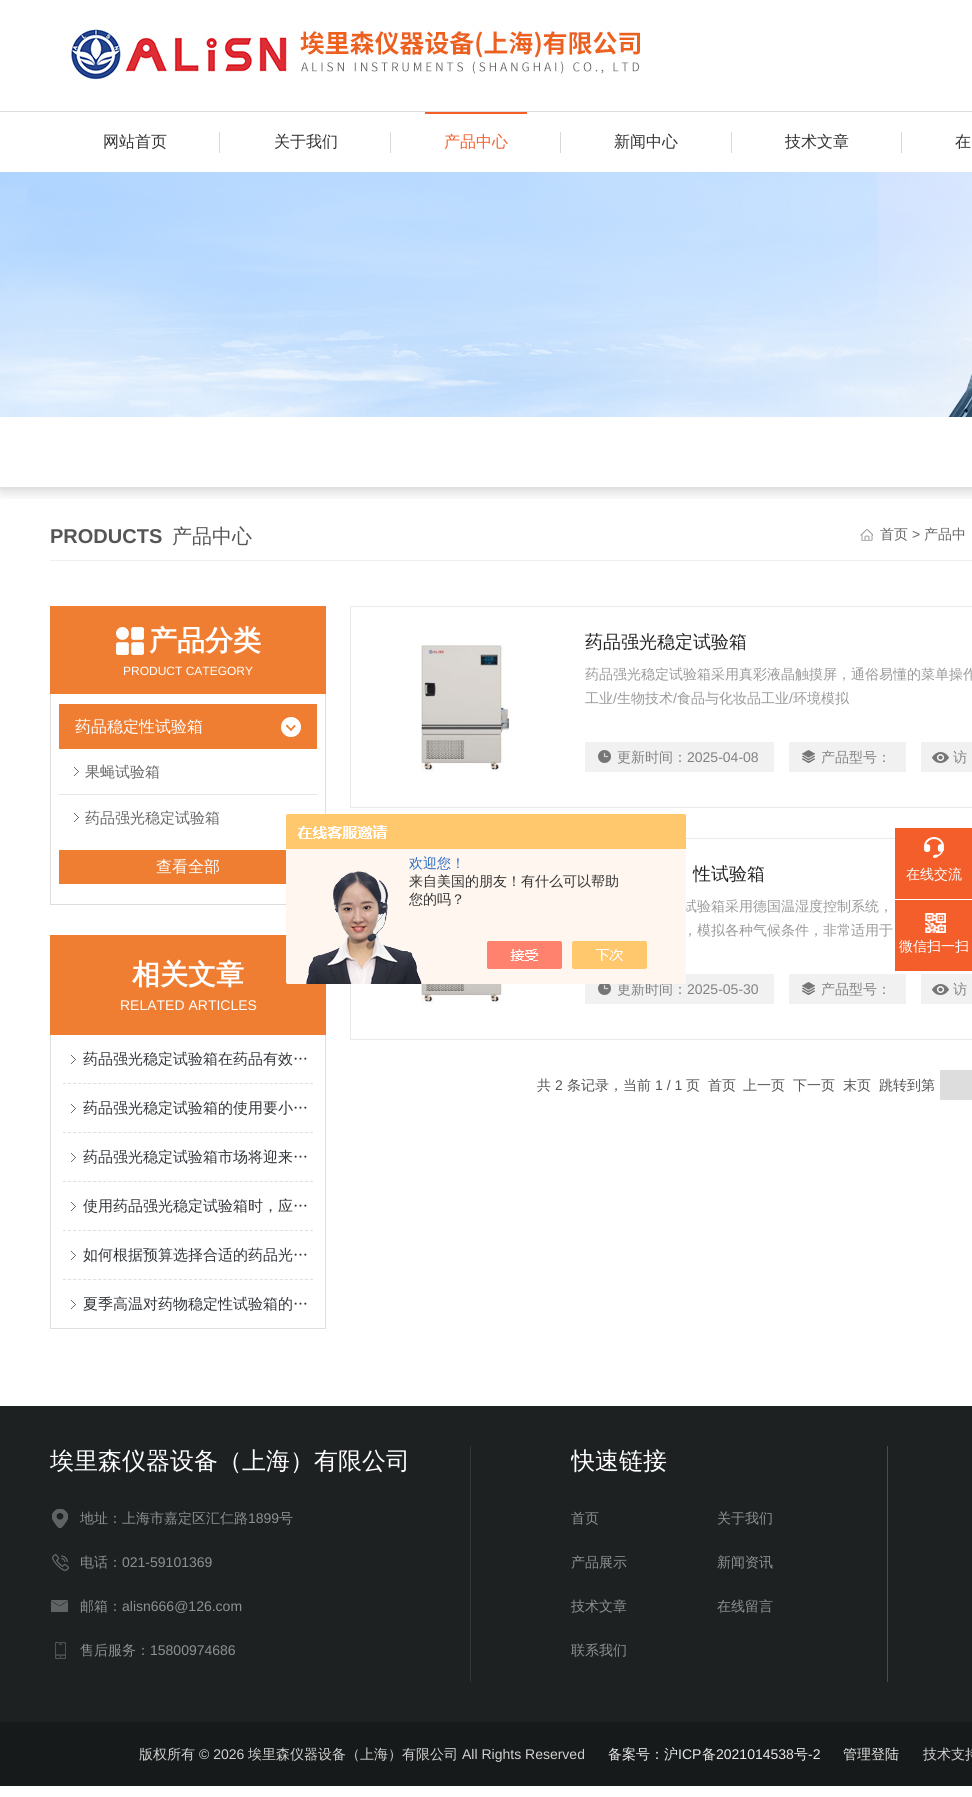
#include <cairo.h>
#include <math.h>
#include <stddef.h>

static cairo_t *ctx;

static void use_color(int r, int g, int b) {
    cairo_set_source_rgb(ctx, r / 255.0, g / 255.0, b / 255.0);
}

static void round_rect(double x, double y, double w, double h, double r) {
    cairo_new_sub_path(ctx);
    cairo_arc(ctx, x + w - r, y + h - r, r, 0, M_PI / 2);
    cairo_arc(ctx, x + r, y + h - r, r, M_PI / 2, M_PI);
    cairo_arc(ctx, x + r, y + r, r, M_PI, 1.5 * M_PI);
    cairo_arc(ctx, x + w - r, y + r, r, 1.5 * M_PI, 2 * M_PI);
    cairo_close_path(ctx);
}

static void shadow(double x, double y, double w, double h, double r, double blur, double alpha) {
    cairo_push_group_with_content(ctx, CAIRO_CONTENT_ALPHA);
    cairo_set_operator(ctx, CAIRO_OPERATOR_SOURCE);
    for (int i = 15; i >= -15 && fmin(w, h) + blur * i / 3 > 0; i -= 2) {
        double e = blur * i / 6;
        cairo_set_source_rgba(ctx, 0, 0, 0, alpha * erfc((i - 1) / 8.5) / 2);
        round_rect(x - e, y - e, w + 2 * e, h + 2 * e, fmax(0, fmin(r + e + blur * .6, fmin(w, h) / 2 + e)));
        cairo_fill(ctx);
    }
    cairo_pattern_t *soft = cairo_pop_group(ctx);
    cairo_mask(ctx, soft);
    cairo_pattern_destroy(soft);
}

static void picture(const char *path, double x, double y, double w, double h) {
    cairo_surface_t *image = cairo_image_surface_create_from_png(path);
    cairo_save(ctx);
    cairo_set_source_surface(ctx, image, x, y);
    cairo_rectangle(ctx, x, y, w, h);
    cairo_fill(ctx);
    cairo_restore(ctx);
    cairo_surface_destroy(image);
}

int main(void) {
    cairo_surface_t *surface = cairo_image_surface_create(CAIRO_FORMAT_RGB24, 972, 1797);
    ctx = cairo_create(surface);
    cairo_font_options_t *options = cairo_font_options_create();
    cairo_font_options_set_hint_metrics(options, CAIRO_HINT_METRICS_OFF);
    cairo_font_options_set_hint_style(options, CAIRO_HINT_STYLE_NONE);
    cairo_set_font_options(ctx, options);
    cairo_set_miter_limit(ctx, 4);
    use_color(255, 255, 255);
    cairo_paint(ctx);
    picture("img1.png", 67, 24, 575, 56);
    use_color(222, 222, 222);
    cairo_rectangle(ctx, 0, 111, 972, 1);
    cairo_fill(ctx);
    cairo_select_font_face(ctx, "WenQuanYi Zen Hei Medium", CAIRO_FONT_SLANT_NORMAL, CAIRO_FONT_WEIGHT_NORMAL);
    cairo_set_font_size(ctx, 16);
    use_color(51, 51, 51);
    cairo_move_to(ctx, 103, 147);
    cairo_show_text(ctx, "网站首页");
    use_color(217, 217, 216);
    cairo_rectangle(ctx, 219, 132, 1, 21);
    cairo_fill(ctx);
    use_color(51, 51, 51);
    cairo_move_to(ctx, 274, 147);
    cairo_show_text(ctx, "关于我们");
    use_color(217, 217, 216);
    cairo_rectangle(ctx, 390, 132, 1, 21);
    cairo_fill(ctx);
    use_color(244, 94, 43);
    cairo_rectangle(ctx, 425, 112, 102, 2);
    cairo_fill(ctx);
    cairo_move_to(ctx, 444, 147);
    cairo_show_text(ctx, "产品中心");
    use_color(217, 217, 216);
    cairo_rectangle(ctx, 560, 132, 1, 21);
    cairo_fill(ctx);
    use_color(51, 51, 51);
    cairo_move_to(ctx, 614, 147);
    cairo_show_text(ctx, "新闻中心");
    use_color(217, 217, 216);
    cairo_rectangle(ctx, 731, 132, 1, 21);
    cairo_fill(ctx);
    use_color(51, 51, 51);
    cairo_move_to(ctx, 785, 147);
    cairo_show_text(ctx, "技术文章");
    use_color(217, 217, 216);
    cairo_rectangle(ctx, 901, 132, 1, 21);
    cairo_fill(ctx);
    use_color(51, 51, 51);
    cairo_move_to(ctx, 955, 147);
    cairo_show_text(ctx, "在");
    cairo_save(ctx);
    cairo_rectangle(ctx, 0, 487, 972, 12);
    cairo_clip(ctx);
    use_color(0, 0, 0);
    shadow(0, 420, 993, 70, 0, 7, 0.2);
    cairo_restore(ctx);
    picture("img2.png", 0, 172, 972, 245);
    use_color(239, 239, 239);
    cairo_rectangle(ctx, 50, 560, 922, 1);
    cairo_fill(ctx);
    cairo_select_font_face(ctx, "Liberation Sans", CAIRO_FONT_SLANT_NORMAL, CAIRO_FONT_WEIGHT_BOLD);
    cairo_set_font_size(ctx, 20);
    use_color(85, 85, 85);
    cairo_move_to(ctx, 50, 543);
    cairo_show_text(ctx, "PRODUCTS");
    cairo_select_font_face(ctx, "WenQuanYi Zen Hei Medium", CAIRO_FONT_SLANT_NORMAL, CAIRO_FONT_WEIGHT_NORMAL);
    cairo_move_to(ctx, 172, 543);
    cairo_show_text(ctx, "产品中心");
    picture("img3.png", 860, 529, 13, 12);
    cairo_set_font_size(ctx, 14);
    use_color(102, 102, 102);
    cairo_move_to(ctx, 880, 539);
    cairo_show_text(ctx, "首页");
    cairo_select_font_face(ctx, "Liberation Sans", CAIRO_FONT_SLANT_NORMAL, CAIRO_FONT_WEIGHT_NORMAL);
    cairo_move_to(ctx, 912, 539);
    cairo_show_text(ctx, ">");
    cairo_select_font_face(ctx, "WenQuanYi Zen Hei Medium", CAIRO_FONT_SLANT_NORMAL, CAIRO_FONT_WEIGHT_NORMAL);
    cairo_move_to(ctx, 924, 539);
    cairo_show_text(ctx, "产品中");
    use_color(239, 126, 50);
    cairo_rectangle(ctx, 50, 606, 276, 88);
    cairo_fill(ctx);
    picture("img4.png", 116, 627, 28, 28);
    cairo_select_font_face(ctx, "WenQuanYi Zen Hei", CAIRO_FONT_SLANT_NORMAL, CAIRO_FONT_WEIGHT_BOLD);
    cairo_set_font_size(ctx, 28);
    use_color(255, 255, 255);
    cairo_move_to(ctx, 149, 650);
    cairo_show_text(ctx, "产品分类");
    cairo_select_font_face(ctx, "Liberation Sans", CAIRO_FONT_SLANT_NORMAL, CAIRO_FONT_WEIGHT_NORMAL);
    cairo_set_font_size(ctx, 12);
    cairo_move_to(ctx, 123, 675);
    cairo_show_text(ctx, "PRODUCT CATEGORY");
    use_color(222, 222, 222);
    cairo_rectangle(ctx, 325, 694, 1, 120);
    cairo_fill(ctx);
    cairo_rectangle(ctx, 50, 904, 236, 1);
    cairo_fill(ctx);
    cairo_rectangle(ctx, 50, 694, 1, 211);
    cairo_fill(ctx);
    use_color(239, 126, 50);
    cairo_rectangle(ctx, 59, 704, 258, 45);
    cairo_fill(ctx);
    cairo_select_font_face(ctx, "WenQuanYi Zen Hei Medium", CAIRO_FONT_SLANT_NORMAL, CAIRO_FONT_WEIGHT_NORMAL);
    cairo_set_font_size(ctx, 16);
    use_color(255, 255, 255);
    cairo_move_to(ctx, 75, 732);
    cairo_show_text(ctx, "药品稳定性试验箱");
    picture("img5.png", 281, 717, 20, 20);
    picture("img6.png", 74, 767, 5, 9);
    cairo_set_font_size(ctx, 15);
    use_color(102, 102, 102);
    cairo_move_to(ctx, 85, 777);
    cairo_show_text(ctx, "果蝇试验箱");
    picture("img6.png", 74, 813, 5, 9);
    use_color(231, 229, 229);
    cairo_rectangle(ctx, 59, 794, 258, 1);
    cairo_fill(ctx);
    use_color(102, 102, 102);
    cairo_move_to(ctx, 85, 823);
    cairo_show_text(ctx, "药品强光稳定试验箱");
    use_color(239, 126, 50);
    cairo_rectangle(ctx, 59, 850, 227, 34);
    cairo_fill(ctx);
    cairo_set_font_size(ctx, 16);
    use_color(255, 255, 255);
    cairo_move_to(ctx, 156, 872);
    cairo_show_text(ctx, "查看全部");
    use_color(239, 126, 50);
    cairo_rectangle(ctx, 50, 935, 276, 100);
    cairo_fill(ctx);
    cairo_select_font_face(ctx, "WenQuanYi Zen Hei", CAIRO_FONT_SLANT_NORMAL, CAIRO_FONT_WEIGHT_BOLD);
    cairo_set_font_size(ctx, 28);
    use_color(255, 255, 255);
    cairo_move_to(ctx, 132, 984);
    cairo_show_text(ctx, "相关文章");
    cairo_select_font_face(ctx, "Liberation Sans", CAIRO_FONT_SLANT_NORMAL, CAIRO_FONT_WEIGHT_NORMAL);
    cairo_set_font_size(ctx, 14);
    cairo_move_to(ctx, 120, 1010);
    cairo_show_text(ctx, "RELATED ARTICLES");
    use_color(223, 223, 223);
    cairo_rectangle(ctx, 325, 1035, 1, 294);
    cairo_fill(ctx);
    cairo_rectangle(ctx, 50, 1328, 276, 1);
    cairo_fill(ctx);
    cairo_rectangle(ctx, 50, 1035, 1, 294);
    cairo_fill(ctx);
    cairo_new_path(ctx);
    cairo_move_to(ctx, 63, 1083.5);
    cairo_line_to(ctx, 313, 1083.5);
    cairo_set_line_width(ctx, 1);
    cairo_set_dash(ctx, (double[]){3, 2.04}, 2, 0);
    cairo_stroke(ctx);
    picture("img6.png", 71, 1055, 5, 9);
    cairo_select_font_face(ctx, "WenQuanYi Zen Hei Medium", CAIRO_FONT_SLANT_NORMAL, CAIRO_FONT_WEIGHT_NORMAL);
    cairo_set_font_size(ctx, 15);
    use_color(50, 53, 58);
    cairo_move_to(ctx, 83, 1064);
    cairo_show_text(ctx, "药品强光稳定试验箱在药品有效…");
    cairo_new_path(ctx);
    cairo_move_to(ctx, 63, 1132.5);
    cairo_line_to(ctx, 313, 1132.5);
    use_color(223, 223, 223);
    cairo_stroke(ctx);
    picture("img6.png", 71, 1104, 5, 9);
    use_color(50, 53, 58);
    cairo_move_to(ctx, 83, 1113);
    cairo_show_text(ctx, "药品强光稳定试验箱的使用要小…");
    cairo_new_path(ctx);
    cairo_move_to(ctx, 63, 1181.5);
    cairo_line_to(ctx, 313, 1181.5);
    use_color(223, 223, 223);
    cairo_stroke(ctx);
    picture("img6.png", 71, 1153, 5, 9);
    use_color(50, 53, 58);
    cairo_move_to(ctx, 83, 1162);
    cairo_show_text(ctx, "药品强光稳定试验箱市场将迎来…");
    cairo_new_path(ctx);
    cairo_move_to(ctx, 63, 1230.5);
    cairo_line_to(ctx, 313, 1230.5);
    use_color(223, 223, 223);
    cairo_stroke(ctx);
    picture("img6.png", 71, 1202, 5, 9);
    use_color(50, 53, 58);
    cairo_move_to(ctx, 83, 1211);
    cairo_show_text(ctx, "使用药品强光稳定试验箱时，应…");
    cairo_new_path(ctx);
    cairo_move_to(ctx, 63, 1279.5);
    cairo_line_to(ctx, 313, 1279.5);
    use_color(223, 223, 223);
    cairo_stroke(ctx);
    picture("img6.png", 71, 1251, 5, 9);
    use_color(50, 53, 58);
    cairo_move_to(ctx, 83, 1260);
    cairo_show_text(ctx, "如何根据预算选择合适的药品光…");
    picture("img6.png", 71, 1300, 5, 9);
    cairo_move_to(ctx, 83, 1309);
    cairo_show_text(ctx, "夏季高温对药物稳定性试验箱的…");
    cairo_rectangle(ctx, 350.5, 606.5, 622, 201);
    use_color(234, 234, 234);
    cairo_set_dash(ctx, NULL, 0, 0);
    cairo_stroke(ctx);
    picture("img7.png", 421, 644, 90, 128);
    cairo_set_font_size(ctx, 18);
    use_color(34, 34, 34);
    cairo_move_to(ctx, 585, 648);
    cairo_show_text(ctx, "药品强光稳定试验箱");
    cairo_set_font_size(ctx, 14);
    use_color(153, 153, 153);
    cairo_move_to(ctx, 585, 679);
    cairo_show_text(ctx, "药品强光稳定试验箱采用真彩液晶触摸屏，通俗易懂的菜单操作");
    cairo_move_to(ctx, 585, 703);
    cairo_show_text(ctx, "工业");
    cairo_select_font_face(ctx, "Liberation Sans", CAIRO_FONT_SLANT_NORMAL, CAIRO_FONT_WEIGHT_NORMAL);
    cairo_move_to(ctx, 613, 703);
    cairo_show_text(ctx, "/");
    cairo_select_font_face(ctx, "WenQuanYi Zen Hei Medium", CAIRO_FONT_SLANT_NORMAL, CAIRO_FONT_WEIGHT_NORMAL);
    cairo_move_to(ctx, 617, 703);
    cairo_show_text(ctx, "生物技术");
    cairo_select_font_face(ctx, "Liberation Sans", CAIRO_FONT_SLANT_NORMAL, CAIRO_FONT_WEIGHT_NORMAL);
    cairo_move_to(ctx, 673, 703);
    cairo_show_text(ctx, "/");
    cairo_select_font_face(ctx, "WenQuanYi Zen Hei Medium", CAIRO_FONT_SLANT_NORMAL, CAIRO_FONT_WEIGHT_NORMAL);
    cairo_move_to(ctx, 677, 703);
    cairo_show_text(ctx, "食品与化妆品工业");
    cairo_select_font_face(ctx, "Liberation Sans", CAIRO_FONT_SLANT_NORMAL, CAIRO_FONT_WEIGHT_NORMAL);
    cairo_move_to(ctx, 789, 703);
    cairo_show_text(ctx, "/");
    cairo_select_font_face(ctx, "WenQuanYi Zen Hei Medium", CAIRO_FONT_SLANT_NORMAL, CAIRO_FONT_WEIGHT_NORMAL);
    cairo_move_to(ctx, 793, 703);
    cairo_show_text(ctx, "环境模拟");
    use_color(241, 241, 241);
    cairo_rectangle(ctx, 585, 742, 189, 30);
    cairo_fill(ctx);
    picture("img8.png", 598, 750, 13, 13);
    use_color(130, 130, 130);
    cairo_move_to(ctx, 617, 762);
    cairo_show_text(ctx, "更新时间：");
    cairo_select_font_face(ctx, "Liberation Sans", CAIRO_FONT_SLANT_NORMAL, CAIRO_FONT_WEIGHT_NORMAL);
    cairo_move_to(ctx, 687, 762);
    cairo_show_text(ctx, "2025-04-08");
    use_color(241, 241, 241);
    cairo_rectangle(ctx, 789, 742, 117, 30);
    cairo_fill(ctx);
    picture("img9.png", 802, 750, 13, 13);
    cairo_select_font_face(ctx, "WenQuanYi Zen Hei Medium", CAIRO_FONT_SLANT_NORMAL, CAIRO_FONT_WEIGHT_NORMAL);
    use_color(130, 130, 130);
    cairo_move_to(ctx, 821, 762);
    cairo_show_text(ctx, "产品型号：");
    use_color(241, 241, 241);
    cairo_rectangle(ctx, 921, 742, 51, 30);
    cairo_fill(ctx);
    picture("img10.png", 932, 752, 17, 11);
    use_color(130, 130, 130);
    cairo_move_to(ctx, 953, 762);
    cairo_show_text(ctx, "访");
    cairo_rectangle(ctx, 350.5, 838.5, 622, 201);
    use_color(234, 234, 234);
    cairo_stroke(ctx);
    picture("img11.png", 421, 984, 90, 20);
    cairo_set_font_size(ctx, 18);
    use_color(34, 34, 34);
    cairo_move_to(ctx, 693, 880);
    cairo_show_text(ctx, "性试验箱");
    cairo_set_font_size(ctx, 14);
    use_color(153, 153, 153);
    cairo_move_to(ctx, 683, 911);
    cairo_show_text(ctx, "试验箱采用德国温湿度控制系统，");
    cairo_move_to(ctx, 683, 935);
    cairo_show_text(ctx, "，模拟各种气候条件，非常适用于");
    use_color(241, 241, 241);
    cairo_rectangle(ctx, 585, 974, 189, 30);
    cairo_fill(ctx);
    picture("img12.png", 598, 984, 13, 11);
    use_color(130, 130, 130);
    cairo_move_to(ctx, 617, 994);
    cairo_show_text(ctx, "更新时间：");
    cairo_select_font_face(ctx, "Liberation Sans", CAIRO_FONT_SLANT_NORMAL, CAIRO_FONT_WEIGHT_NORMAL);
    cairo_move_to(ctx, 687, 994);
    cairo_show_text(ctx, "2025-05-30");
    use_color(241, 241, 241);
    cairo_rectangle(ctx, 789, 974, 117, 30);
    cairo_fill(ctx);
    picture("img9.png", 802, 982, 13, 13);
    cairo_select_font_face(ctx, "WenQuanYi Zen Hei Medium", CAIRO_FONT_SLANT_NORMAL, CAIRO_FONT_WEIGHT_NORMAL);
    use_color(130, 130, 130);
    cairo_move_to(ctx, 821, 994);
    cairo_show_text(ctx, "产品型号：");
    use_color(241, 241, 241);
    cairo_rectangle(ctx, 921, 974, 51, 30);
    cairo_fill(ctx);
    picture("img10.png", 932, 984, 17, 11);
    use_color(130, 130, 130);
    cairo_move_to(ctx, 953, 994);
    cairo_show_text(ctx, "访");
    use_color(85, 85, 85);
    cairo_move_to(ctx, 537, 1090);
    cairo_show_text(ctx, "共");
    cairo_select_font_face(ctx, "Liberation Sans", CAIRO_FONT_SLANT_NORMAL, CAIRO_FONT_WEIGHT_NORMAL);
    cairo_move_to(ctx, 555, 1090);
    cairo_show_text(ctx, "2");
    cairo_select_font_face(ctx, "WenQuanYi Zen Hei Medium", CAIRO_FONT_SLANT_NORMAL, CAIRO_FONT_WEIGHT_NORMAL);
    cairo_move_to(ctx, 567, 1090);
    cairo_show_text(ctx, "条记录，当前");
    cairo_select_font_face(ctx, "Liberation Sans", CAIRO_FONT_SLANT_NORMAL, CAIRO_FONT_WEIGHT_NORMAL);
    cairo_move_to(ctx, 655, 1090);
    cairo_show_text(ctx, "1 / 1");
    cairo_select_font_face(ctx, "WenQuanYi Zen Hei Medium", CAIRO_FONT_SLANT_NORMAL, CAIRO_FONT_WEIGHT_NORMAL);
    cairo_move_to(ctx, 686, 1090);
    cairo_show_text(ctx, "页");
    cairo_move_to(ctx, 708, 1090);
    cairo_show_text(ctx, "首页");
    cairo_move_to(ctx, 743, 1090);
    cairo_show_text(ctx, "上一页");
    cairo_move_to(ctx, 793, 1090);
    cairo_show_text(ctx, "下一页");
    cairo_move_to(ctx, 843, 1090);
    cairo_show_text(ctx, "末页");
    cairo_move_to(ctx, 879, 1090);
    cairo_show_text(ctx, "跳转到第");
    use_color(221, 221, 221);
    cairo_rectangle(ctx, 940, 1070, 32, 30);
    cairo_fill(ctx);
    picture("img13.png", 286, 814, 400, 170);
    use_color(46, 110, 198);
    cairo_move_to(ctx, 409, 868);
    cairo_show_text(ctx, "欢迎您！");
    use_color(51, 51, 51);
    cairo_move_to(ctx, 409, 886);
    cairo_show_text(ctx, "来自美国的朋友！有什么可以帮助");
    cairo_move_to(ctx, 409, 904);
    cairo_show_text(ctx, "您的吗？");
    use_color(244, 94, 43);
    cairo_rectangle(ctx, 895, 828, 77, 71);
    cairo_fill(ctx);
    picture("img14.png", 924, 837, 20, 21);
    use_color(255, 255, 255);
    cairo_move_to(ctx, 906, 879);
    cairo_show_text(ctx, "在线交流");
    use_color(244, 94, 43);
    cairo_rectangle(ctx, 895, 900, 77, 71);
    cairo_fill(ctx);
    picture("img15.png", 925, 913, 21, 20);
    use_color(255, 255, 255);
    cairo_move_to(ctx, 899, 951);
    cairo_show_text(ctx, "微信扫一扫");
    use_color(29, 33, 34);
    cairo_rectangle(ctx, 0, 1406, 972, 316);
    cairo_fill(ctx);
    cairo_set_font_size(ctx, 24);
    use_color(255, 255, 255);
    cairo_move_to(ctx, 50, 1469);
    cairo_show_text(ctx, "埃里森仪器设备（上海）有限公司");
    picture("img16.png", 52, 1509, 16, 19);
    cairo_set_font_size(ctx, 14);
    use_color(142, 144, 145);
    cairo_move_to(ctx, 80, 1523);
    cairo_show_text(ctx, "地址：上海市嘉定区汇仁路");
    cairo_select_font_face(ctx, "Liberation Sans", CAIRO_FONT_SLANT_NORMAL, CAIRO_FONT_WEIGHT_NORMAL);
    cairo_move_to(ctx, 248, 1523);
    cairo_show_text(ctx, "1899");
    cairo_select_font_face(ctx, "WenQuanYi Zen Hei Medium", CAIRO_FONT_SLANT_NORMAL, CAIRO_FONT_WEIGHT_NORMAL);
    cairo_move_to(ctx, 279, 1523);
    cairo_show_text(ctx, "号");
    picture("img17.png", 52, 1554, 17, 17);
    cairo_move_to(ctx, 80, 1567);
    cairo_show_text(ctx, "电话：");
    cairo_select_font_face(ctx, "Liberation Sans", CAIRO_FONT_SLANT_NORMAL, CAIRO_FONT_WEIGHT_NORMAL);
    cairo_move_to(ctx, 122, 1567);
    cairo_show_text(ctx, "021-59101369");
    picture("img18.png", 51, 1600, 17, 12);
    cairo_select_font_face(ctx, "WenQuanYi Zen Hei Medium", CAIRO_FONT_SLANT_NORMAL, CAIRO_FONT_WEIGHT_NORMAL);
    cairo_move_to(ctx, 80, 1611);
    cairo_show_text(ctx, "邮箱：");
    cairo_select_font_face(ctx, "Liberation Sans", CAIRO_FONT_SLANT_NORMAL, CAIRO_FONT_WEIGHT_NORMAL);
    cairo_move_to(ctx, 122, 1611);
    cairo_show_text(ctx, "alisn666@126.com");
    picture("img19.png", 55, 1642, 11, 17);
    cairo_select_font_face(ctx, "WenQuanYi Zen Hei Medium", CAIRO_FONT_SLANT_NORMAL, CAIRO_FONT_WEIGHT_NORMAL);
    cairo_move_to(ctx, 80, 1655);
    cairo_show_text(ctx, "售后服务：");
    cairo_select_font_face(ctx, "Liberation Sans", CAIRO_FONT_SLANT_NORMAL, CAIRO_FONT_WEIGHT_NORMAL);
    cairo_move_to(ctx, 150, 1655);
    cairo_show_text(ctx, "15800974686");
    use_color(74, 77, 78);
    cairo_rectangle(ctx, 887, 1446, 1, 236);
    cairo_fill(ctx);
    use_color(52, 55, 56);
    cairo_rectangle(ctx, 470, 1446, 1, 236);
    cairo_fill(ctx);
    cairo_save(ctx);
    cairo_rectangle(ctx, 571, 1446, 316, 30);
    cairo_clip(ctx);
    cairo_select_font_face(ctx, "WenQuanYi Zen Hei Medium", CAIRO_FONT_SLANT_NORMAL, CAIRO_FONT_WEIGHT_NORMAL);
    cairo_set_font_size(ctx, 24);
    use_color(255, 255, 255);
    cairo_move_to(ctx, 571, 1469);
    cairo_show_text(ctx, "快速链接");
    cairo_restore(ctx);
    cairo_select_font_face(ctx, "WenQuanYi Zen Hei Medium", CAIRO_FONT_SLANT_NORMAL, CAIRO_FONT_WEIGHT_NORMAL);
    use_color(142, 144, 145);
    cairo_move_to(ctx, 571, 1523);
    cairo_show_text(ctx, "首页");
    cairo_move_to(ctx, 717, 1523);
    cairo_show_text(ctx, "关于我们");
    cairo_move_to(ctx, 571, 1567);
    cairo_show_text(ctx, "产品展示");
    cairo_move_to(ctx, 717, 1567);
    cairo_show_text(ctx, "新闻资讯");
    cairo_move_to(ctx, 571, 1611);
    cairo_show_text(ctx, "技术文章");
    cairo_move_to(ctx, 717, 1611);
    cairo_show_text(ctx, "在线留言");
    cairo_move_to(ctx, 571, 1655);
    cairo_show_text(ctx, "联系我们");
    use_color(23, 26, 26);
    cairo_rectangle(ctx, 0, 1722, 972, 64);
    cairo_fill(ctx);
    use_color(209, 209, 209);
    cairo_move_to(ctx, 139, 1759);
    cairo_show_text(ctx, "版权所有");
    cairo_select_font_face(ctx, "Liberation Sans", CAIRO_FONT_SLANT_NORMAL, CAIRO_FONT_WEIGHT_NORMAL);
    cairo_move_to(ctx, 199, 1759);
    cairo_show_text(ctx, "© 2026");
    cairo_select_font_face(ctx, "WenQuanYi Zen Hei Medium", CAIRO_FONT_SLANT_NORMAL, CAIRO_FONT_WEIGHT_NORMAL);
    cairo_move_to(ctx, 248, 1759);
    cairo_show_text(ctx, "埃里森仪器设备（上海）有限公司");
    cairo_select_font_face(ctx, "Liberation Sans", CAIRO_FONT_SLANT_NORMAL, CAIRO_FONT_WEIGHT_NORMAL);
    cairo_move_to(ctx, 462, 1759);
    cairo_show_text(ctx, "All Rights Reserved");
    cairo_select_font_face(ctx, "WenQuanYi Zen Hei Medium", CAIRO_FONT_SLANT_NORMAL, CAIRO_FONT_WEIGHT_NORMAL);
    use_color(232, 232, 232);
    cairo_move_to(ctx, 608, 1759);
    cairo_show_text(ctx, "备案号：沪");
    cairo_select_font_face(ctx, "Liberation Sans", CAIRO_FONT_SLANT_NORMAL, CAIRO_FONT_WEIGHT_NORMAL);
    cairo_move_to(ctx, 678, 1759);
    cairo_show_text(ctx, "ICP");
    cairo_select_font_face(ctx, "WenQuanYi Zen Hei Medium", CAIRO_FONT_SLANT_NORMAL, CAIRO_FONT_WEIGHT_NORMAL);
    cairo_move_to(ctx, 702, 1759);
    cairo_show_text(ctx, "备");
    cairo_select_font_face(ctx, "Liberation Sans", CAIRO_FONT_SLANT_NORMAL, CAIRO_FONT_WEIGHT_NORMAL);
    cairo_move_to(ctx, 716, 1759);
    cairo_show_text(ctx, "2021014538");
    cairo_select_font_face(ctx, "WenQuanYi Zen Hei Medium", CAIRO_FONT_SLANT_NORMAL, CAIRO_FONT_WEIGHT_NORMAL);
    cairo_move_to(ctx, 794, 1759);
    cairo_show_text(ctx, "号");
    cairo_select_font_face(ctx, "Liberation Sans", CAIRO_FONT_SLANT_NORMAL, CAIRO_FONT_WEIGHT_NORMAL);
    cairo_move_to(ctx, 808, 1759);
    cairo_show_text(ctx, "-2");
    cairo_select_font_face(ctx, "WenQuanYi Zen Hei Medium", CAIRO_FONT_SLANT_NORMAL, CAIRO_FONT_WEIGHT_NORMAL);
    cairo_move_to(ctx, 843, 1759);
    cairo_show_text(ctx, "管理登陆");
    use_color(209, 209, 209);
    cairo_move_to(ctx, 923, 1759);
    cairo_show_text(ctx, "技术支持");
    cairo_surface_write_to_png(surface, "result.png");
    cairo_font_options_destroy(options);
    cairo_destroy(ctx);
    cairo_surface_destroy(surface);
    return 0;
}
